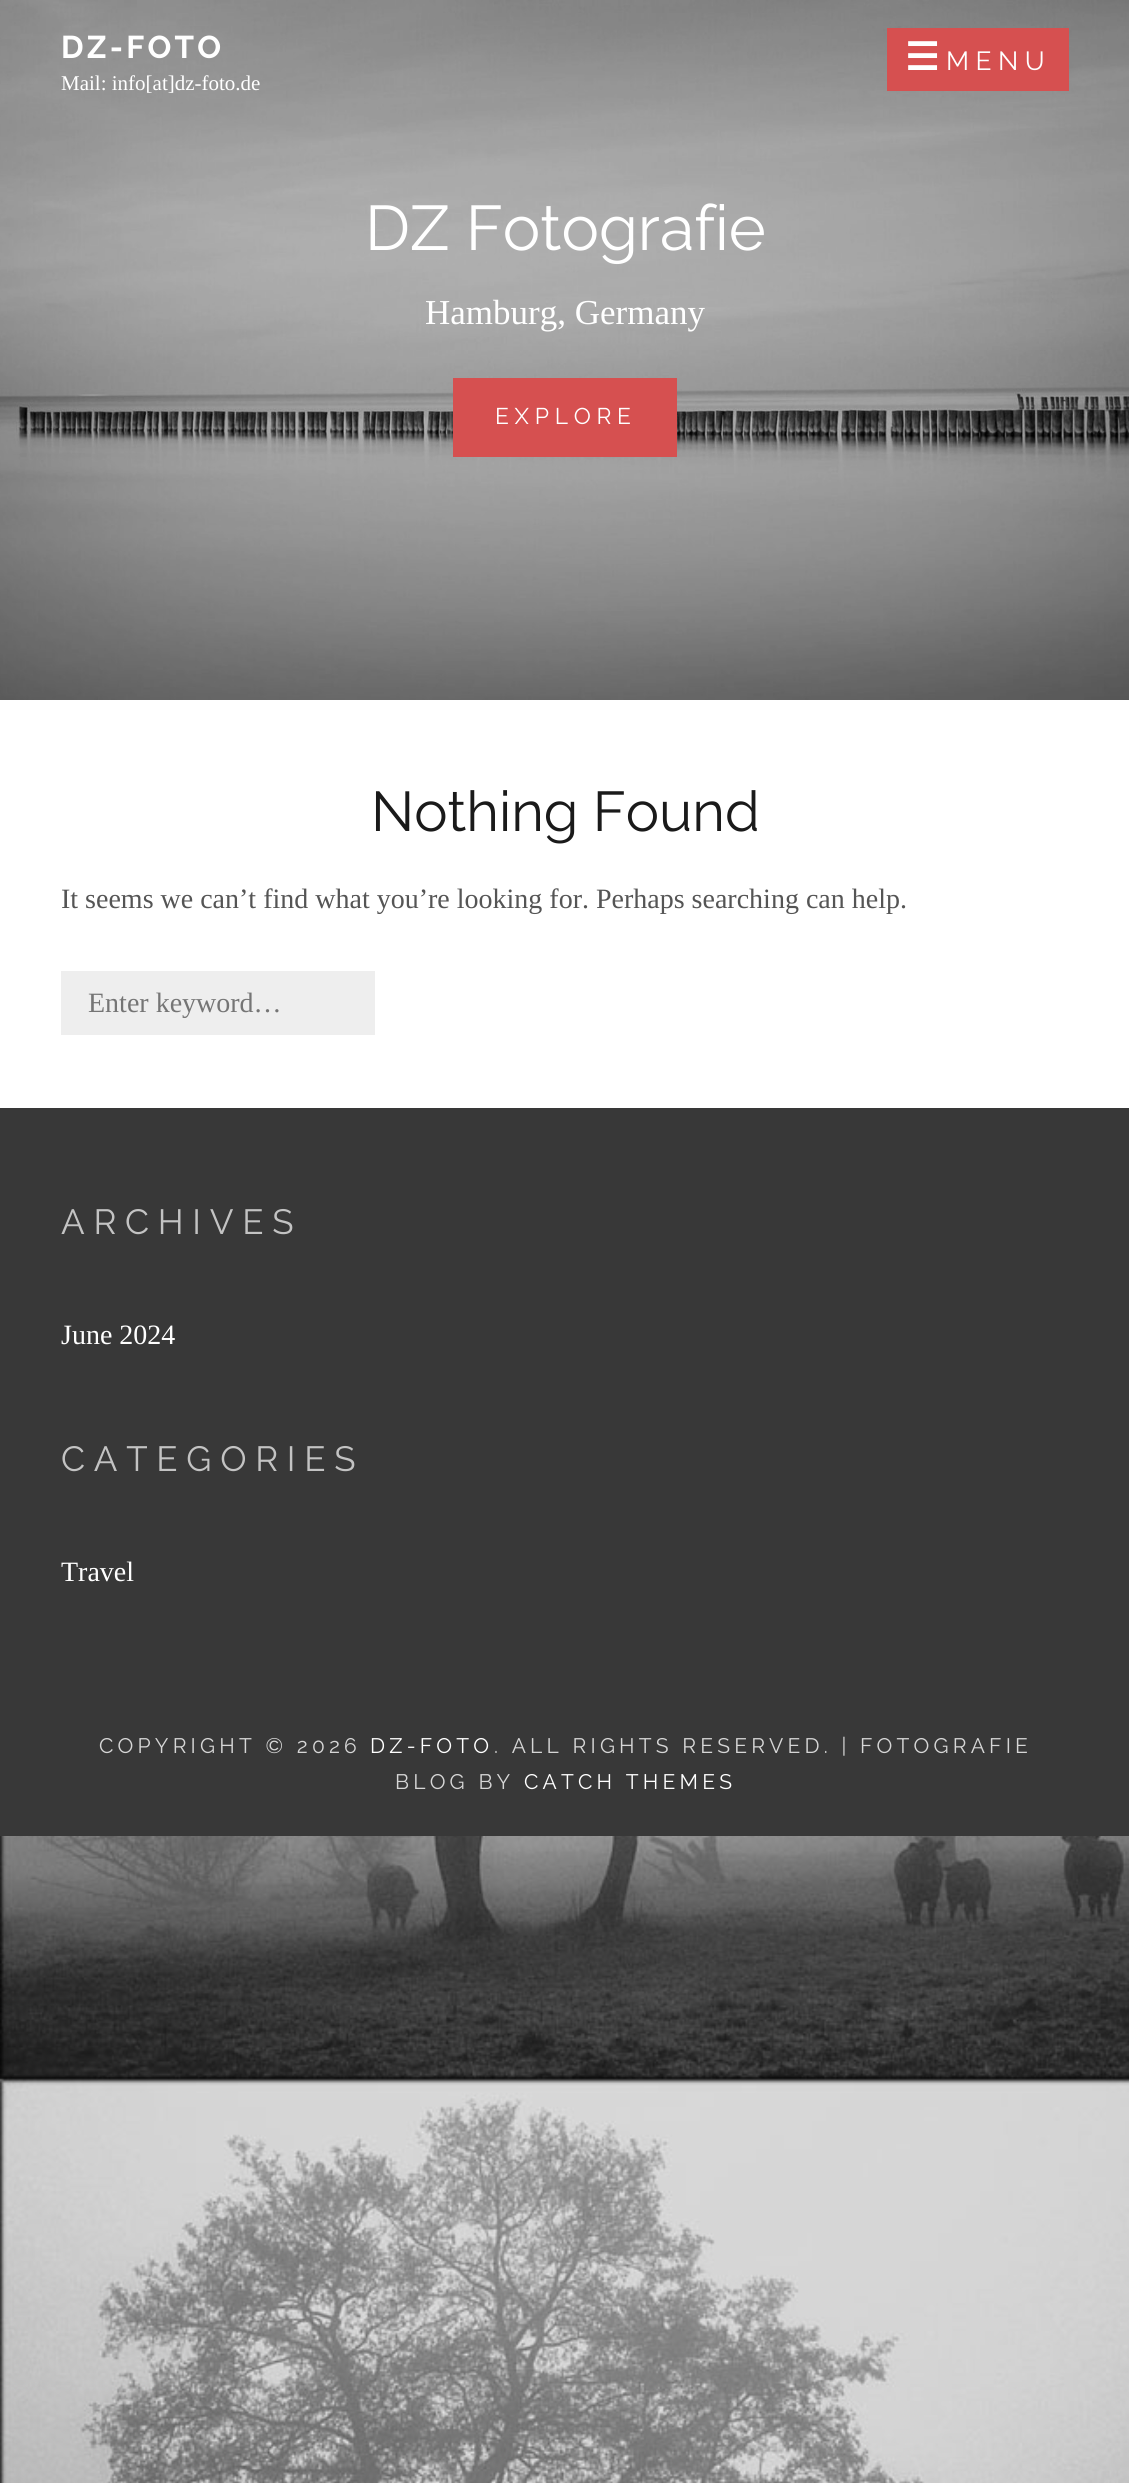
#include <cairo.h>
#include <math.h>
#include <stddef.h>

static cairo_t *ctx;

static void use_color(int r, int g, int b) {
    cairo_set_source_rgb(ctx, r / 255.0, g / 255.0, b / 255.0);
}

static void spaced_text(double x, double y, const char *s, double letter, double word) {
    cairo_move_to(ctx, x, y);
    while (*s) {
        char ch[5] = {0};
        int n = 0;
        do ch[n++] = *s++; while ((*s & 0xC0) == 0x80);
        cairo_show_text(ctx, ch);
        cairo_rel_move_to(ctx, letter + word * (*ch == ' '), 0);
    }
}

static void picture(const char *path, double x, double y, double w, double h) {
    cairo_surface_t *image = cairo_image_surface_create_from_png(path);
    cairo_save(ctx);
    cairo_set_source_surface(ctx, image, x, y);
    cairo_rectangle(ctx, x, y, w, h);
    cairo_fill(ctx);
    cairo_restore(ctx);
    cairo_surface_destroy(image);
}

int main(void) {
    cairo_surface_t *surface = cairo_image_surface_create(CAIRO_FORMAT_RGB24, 1129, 2483);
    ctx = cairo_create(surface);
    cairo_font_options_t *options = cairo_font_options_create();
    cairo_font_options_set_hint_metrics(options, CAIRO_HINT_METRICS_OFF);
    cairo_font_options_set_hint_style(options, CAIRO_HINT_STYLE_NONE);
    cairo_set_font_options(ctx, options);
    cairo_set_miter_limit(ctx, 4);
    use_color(255, 255, 255);
    cairo_paint(ctx);
    picture("img1.png", 0, 1836, 1129, 647);
    picture("img2.png", 0, 0, 1129, 700);
    cairo_select_font_face(ctx, "Raleway", CAIRO_FONT_SLANT_NORMAL, CAIRO_FONT_WEIGHT_BOLD);
    cairo_set_font_size(ctx, 31.5);
    use_color(255, 255, 255);
    spaced_text(61, 58, "DZ-FOTO", 3.25, 0);
    cairo_select_font_face(ctx, "Liberation Serif", CAIRO_FONT_SLANT_NORMAL, CAIRO_FONT_WEIGHT_NORMAL);
    cairo_set_font_size(ctx, 21);
    cairo_move_to(ctx, 61, 90);
    cairo_show_text(ctx, "Mail: info[at]dz-foto.de");
    use_color(214, 80, 80);
    cairo_rectangle(ctx, 887, 28, 182, 63);
    cairo_fill(ctx);
    cairo_select_font_face(ctx, "DejaVu Sans", CAIRO_FONT_SLANT_NORMAL, CAIRO_FONT_WEIGHT_BOLD);
    cairo_set_font_size(ctx, 38);
    use_color(255, 255, 255);
    spaced_text(905, 70, "☰", 6.5, 0);
    cairo_select_font_face(ctx, "Raleway", CAIRO_FONT_SLANT_NORMAL, CAIRO_FONT_WEIGHT_NORMAL);
    cairo_set_font_size(ctx, 26.25);
    spaced_text(946, 70, "MENU", 6.5, 0);
    cairo_set_font_size(ctx, 63);
    cairo_move_to(ctx, 365, 250);
    cairo_show_text(ctx, "DZ Fotografie");
    cairo_select_font_face(ctx, "Liberation Serif", CAIRO_FONT_SLANT_NORMAL, CAIRO_FONT_WEIGHT_NORMAL);
    cairo_set_font_size(ctx, 35);
    cairo_move_to(ctx, 425, 324);
    cairo_show_text(ctx, "Hamburg, Germany");
    use_color(214, 80, 80);
    cairo_rectangle(ctx, 453, 378, 224, 79);
    cairo_fill(ctx);
    cairo_select_font_face(ctx, "Raleway", CAIRO_FONT_SLANT_NORMAL, CAIRO_FONT_WEIGHT_NORMAL);
    cairo_set_font_size(ctx, 22.75);
    use_color(255, 255, 255);
    spaced_text(495, 424, "EXPLORE", 5.75, 0);
    cairo_set_font_size(ctx, 56);
    use_color(26, 26, 26);
    cairo_move_to(ctx, 371, 831);
    cairo_show_text(ctx, "Nothing Found");
    cairo_select_font_face(ctx, "Liberation Serif", CAIRO_FONT_SLANT_NORMAL, CAIRO_FONT_WEIGHT_NORMAL);
    cairo_set_font_size(ctx, 28);
    use_color(85, 85, 85);
    cairo_move_to(ctx, 61, 908);
    cairo_show_text(ctx, "It seems we can’t find what you’re looking for. Perhaps searching can help.");
    use_color(238, 238, 238);
    cairo_rectangle(ctx, 63, 973, 312, 60);
    cairo_fill(ctx);
    cairo_rectangle(ctx, 61, 971, 314, 2);
    cairo_fill(ctx);
    cairo_rectangle(ctx, 61, 1033, 314, 2);
    cairo_fill(ctx);
    cairo_rectangle(ctx, 61, 971, 2, 63);
    cairo_fill(ctx);
    use_color(117, 117, 117);
    cairo_move_to(ctx, 88, 1012);
    cairo_show_text(ctx, "Enter keyword…");
    use_color(56, 56, 56);
    cairo_rectangle(ctx, 0, 1108, 1129, 728);
    cairo_fill(ctx);
    cairo_select_font_face(ctx, "Raleway", CAIRO_FONT_SLANT_NORMAL, CAIRO_FONT_WEIGHT_NORMAL);
    cairo_set_font_size(ctx, 35);
    use_color(195, 195, 195);
    spaced_text(61, 1234, "ARCHIVES", 8.75, 0);
    cairo_select_font_face(ctx, "Liberation Serif", CAIRO_FONT_SLANT_NORMAL, CAIRO_FONT_WEIGHT_NORMAL);
    cairo_set_font_size(ctx, 28);
    use_color(255, 255, 255);
    cairo_move_to(ctx, 61, 1344);
    cairo_show_text(ctx, "June 2024");
    cairo_select_font_face(ctx, "Raleway", CAIRO_FONT_SLANT_NORMAL, CAIRO_FONT_WEIGHT_NORMAL);
    cairo_set_font_size(ctx, 35);
    use_color(195, 195, 195);
    spaced_text(61, 1471, "CATEGORIES", 8.75, 0);
    cairo_select_font_face(ctx, "Liberation Serif", CAIRO_FONT_SLANT_NORMAL, CAIRO_FONT_WEIGHT_NORMAL);
    cairo_set_font_size(ctx, 28);
    use_color(255, 255, 255);
    cairo_move_to(ctx, 61, 1581);
    cairo_show_text(ctx, "Travel");
    cairo_select_font_face(ctx, "Raleway", CAIRO_FONT_SLANT_NORMAL, CAIRO_FONT_WEIGHT_NORMAL);
    cairo_set_font_size(ctx, 21);
    use_color(214, 214, 214);
    spaced_text(99, 1753, "COPYRIGHT © 2026", 4.2, 0);
    use_color(255, 255, 255);
    spaced_text(370, 1753, "DZ-FOTO", 4.2, 0);
    use_color(214, 214, 214);
    spaced_text(494, 1753, ". ALL RIGHTS RESERVED. | FOTOGRAFIE", 4.2, 0);
    spaced_text(395, 1789, "BLOG BY", 4.2, 0);
    use_color(255, 255, 255);
    spaced_text(524, 1789, "CATCH THEMES", 4.2, 0);
    cairo_surface_write_to_png(surface, "result.png");
    cairo_font_options_destroy(options);
    cairo_destroy(ctx);
    cairo_surface_destroy(surface);
    return 0;
}
